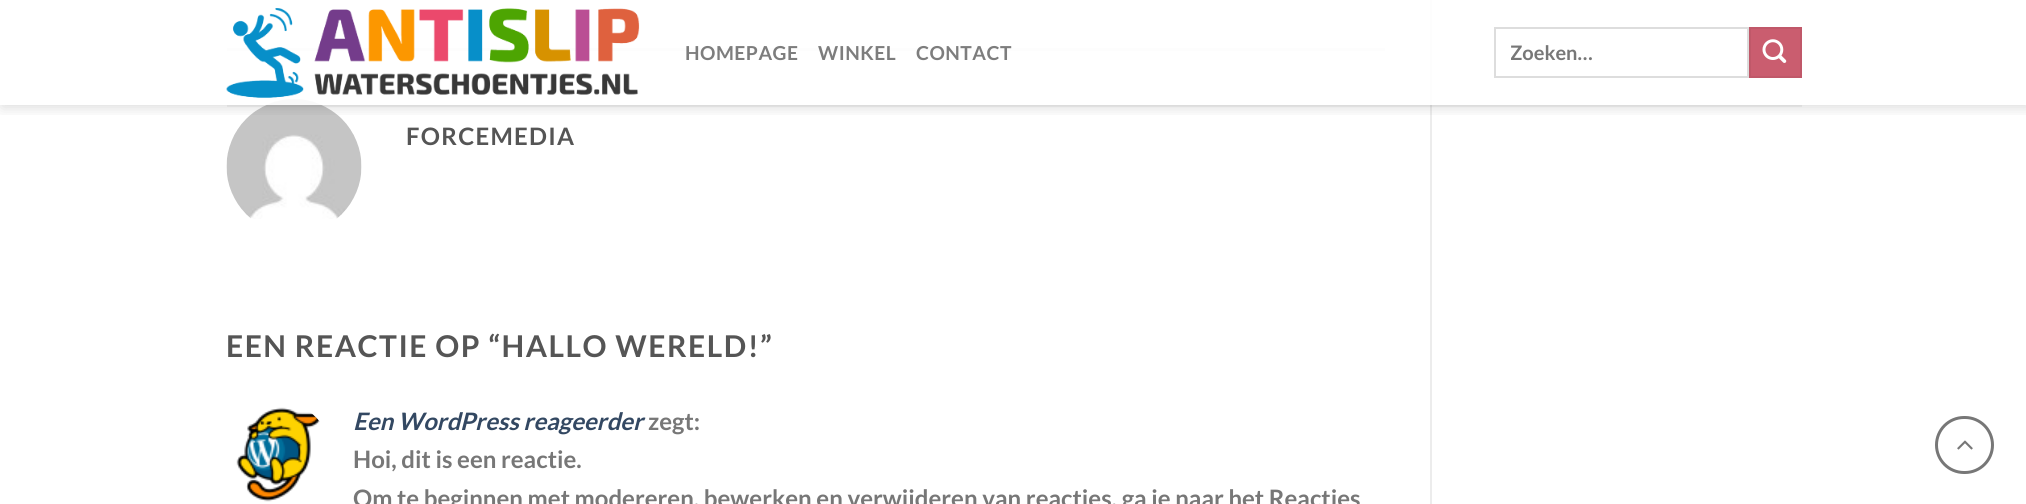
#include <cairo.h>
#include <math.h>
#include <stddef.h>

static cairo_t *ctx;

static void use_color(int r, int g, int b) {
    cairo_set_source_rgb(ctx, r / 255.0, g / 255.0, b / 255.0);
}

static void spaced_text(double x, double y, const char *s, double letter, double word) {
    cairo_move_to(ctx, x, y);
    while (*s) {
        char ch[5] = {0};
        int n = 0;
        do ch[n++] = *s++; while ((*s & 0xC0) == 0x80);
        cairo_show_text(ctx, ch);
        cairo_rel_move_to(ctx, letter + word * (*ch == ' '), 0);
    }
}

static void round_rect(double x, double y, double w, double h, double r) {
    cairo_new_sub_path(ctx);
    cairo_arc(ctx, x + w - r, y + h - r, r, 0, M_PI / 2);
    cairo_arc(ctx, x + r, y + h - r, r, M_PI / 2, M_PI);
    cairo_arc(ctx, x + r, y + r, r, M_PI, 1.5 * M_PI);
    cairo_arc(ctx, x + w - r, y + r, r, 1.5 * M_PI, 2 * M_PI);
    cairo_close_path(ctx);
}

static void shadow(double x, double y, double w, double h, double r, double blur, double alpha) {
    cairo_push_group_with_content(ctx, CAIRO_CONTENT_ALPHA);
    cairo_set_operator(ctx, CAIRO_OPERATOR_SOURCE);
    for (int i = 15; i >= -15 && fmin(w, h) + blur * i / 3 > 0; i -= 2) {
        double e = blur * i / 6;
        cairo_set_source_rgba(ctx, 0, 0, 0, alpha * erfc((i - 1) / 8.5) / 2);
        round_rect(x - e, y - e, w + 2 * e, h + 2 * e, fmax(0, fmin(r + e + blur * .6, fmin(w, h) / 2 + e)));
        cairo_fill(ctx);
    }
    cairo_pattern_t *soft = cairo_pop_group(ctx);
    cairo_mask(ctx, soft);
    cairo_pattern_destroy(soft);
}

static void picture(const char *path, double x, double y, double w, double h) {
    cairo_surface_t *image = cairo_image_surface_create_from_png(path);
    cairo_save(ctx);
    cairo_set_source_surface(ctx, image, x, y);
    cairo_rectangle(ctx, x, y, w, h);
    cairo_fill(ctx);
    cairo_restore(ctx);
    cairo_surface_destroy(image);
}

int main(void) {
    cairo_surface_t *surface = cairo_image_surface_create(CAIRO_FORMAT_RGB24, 2026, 504);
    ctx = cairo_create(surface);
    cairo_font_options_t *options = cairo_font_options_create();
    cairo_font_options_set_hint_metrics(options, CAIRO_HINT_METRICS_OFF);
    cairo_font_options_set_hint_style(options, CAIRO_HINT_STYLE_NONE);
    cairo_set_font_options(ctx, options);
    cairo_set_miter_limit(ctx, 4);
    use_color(255, 255, 255);
    cairo_paint(ctx);
    use_color(236, 236, 236);
    cairo_rectangle(ctx, 227, 48, 1158, 3);
    cairo_fill(ctx);
    picture("img3.png", 226, 99, 136, 120);
    cairo_rectangle(ctx, 1430, 0, 2, 504);
    cairo_fill(ctx);
    cairo_save(ctx);
    cairo_rectangle(ctx, 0, 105, 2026, 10);
    cairo_clip(ctx);
    use_color(0, 0, 0);
    shadow(2, 2, 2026, 105, 0, 7.5, 0.15);
    cairo_restore(ctx);
    cairo_set_source_rgba(ctx, 1, 1, 1, 0.9);
    cairo_rectangle(ctx, 227, 0, 1205, 105);
    cairo_fill(ctx);
    picture("img1.png", 226, 8, 414, 90);
    cairo_select_font_face(ctx, "Lato", CAIRO_FONT_SLANT_NORMAL, CAIRO_FONT_WEIGHT_BOLD);
    cairo_set_font_size(ctx, 19.25);
    use_color(125, 125, 125);
    spaced_text(685, 60, "HOMEPAGE", 0.5, 0);
    spaced_text(818, 60, "WINKEL", 0.5, 0);
    spaced_text(916, 60, "CONTACT", 0.5, 0);
    cairo_rectangle(ctx, 1495, 28, 253, 49);
    use_color(221, 221, 221);
    cairo_stroke(ctx);
    cairo_save(ctx);
    cairo_rectangle(ctx, 1511, 41, 217, 24);
    cairo_clip(ctx);
    cairo_set_font_size(ctx, 20);
    use_color(119, 119, 119);
    cairo_move_to(ctx, 1510, 60);
    cairo_show_text(ctx, "Zoeken…");
    cairo_restore(ctx);
    use_color(202, 93, 111);
    cairo_rectangle(ctx, 1750, 28, 51, 49);
    cairo_fill_preserve(ctx);
    use_color(192, 88, 105);
    cairo_stroke(ctx);
    picture("img2.png", 1762, 39, 25, 24);
    cairo_set_source_rgba(ctx, 0.467, 0.467, 0.467, 0.1);
    cairo_rectangle(ctx, 227, 105, 1575, 2);
    cairo_fill(ctx);
    cairo_set_font_size(ctx, 24);
    use_color(85, 85, 85);
    spaced_text(406, 145, "FORCEMEDIA", 1.25, 0);
    cairo_set_font_size(ctx, 30);
    spaced_text(226, 357, "EEN REACTIE OP “HALLO WERELD!”", 1.5, 0);
    picture("img4.png", 236, 407, 84, 95);
    cairo_select_font_face(ctx, "Lato", CAIRO_FONT_SLANT_ITALIC, CAIRO_FONT_WEIGHT_BOLD);
    cairo_set_font_size(ctx, 24);
    use_color(51, 72, 98);
    cairo_move_to(ctx, 353, 430);
    cairo_show_text(ctx, "Een WordPress reageerder");
    cairo_select_font_face(ctx, "Lato", CAIRO_FONT_SLANT_NORMAL, CAIRO_FONT_WEIGHT_BOLD);
    use_color(119, 119, 119);
    cairo_move_to(ctx, 648, 430);
    cairo_show_text(ctx, "zegt:");
    cairo_move_to(ctx, 353, 468);
    cairo_show_text(ctx, "Hoi, dit is een reactie.");
    cairo_move_to(ctx, 353, 507);
    cairo_show_text(ctx, "Om te beginnen met modereren, bewerken en verwijderen van reacties, ga je naar het Reacties");
    round_rect(1936.5, 417.5, 56, 55, 27.5);
    cairo_set_line_width(ctx, 3);
    cairo_stroke(ctx);
    picture("img5.png", 1957, 440, 16, 10);
    cairo_surface_write_to_png(surface, "result.png");
    cairo_font_options_destroy(options);
    cairo_destroy(ctx);
    cairo_surface_destroy(surface);
    return 0;
}
